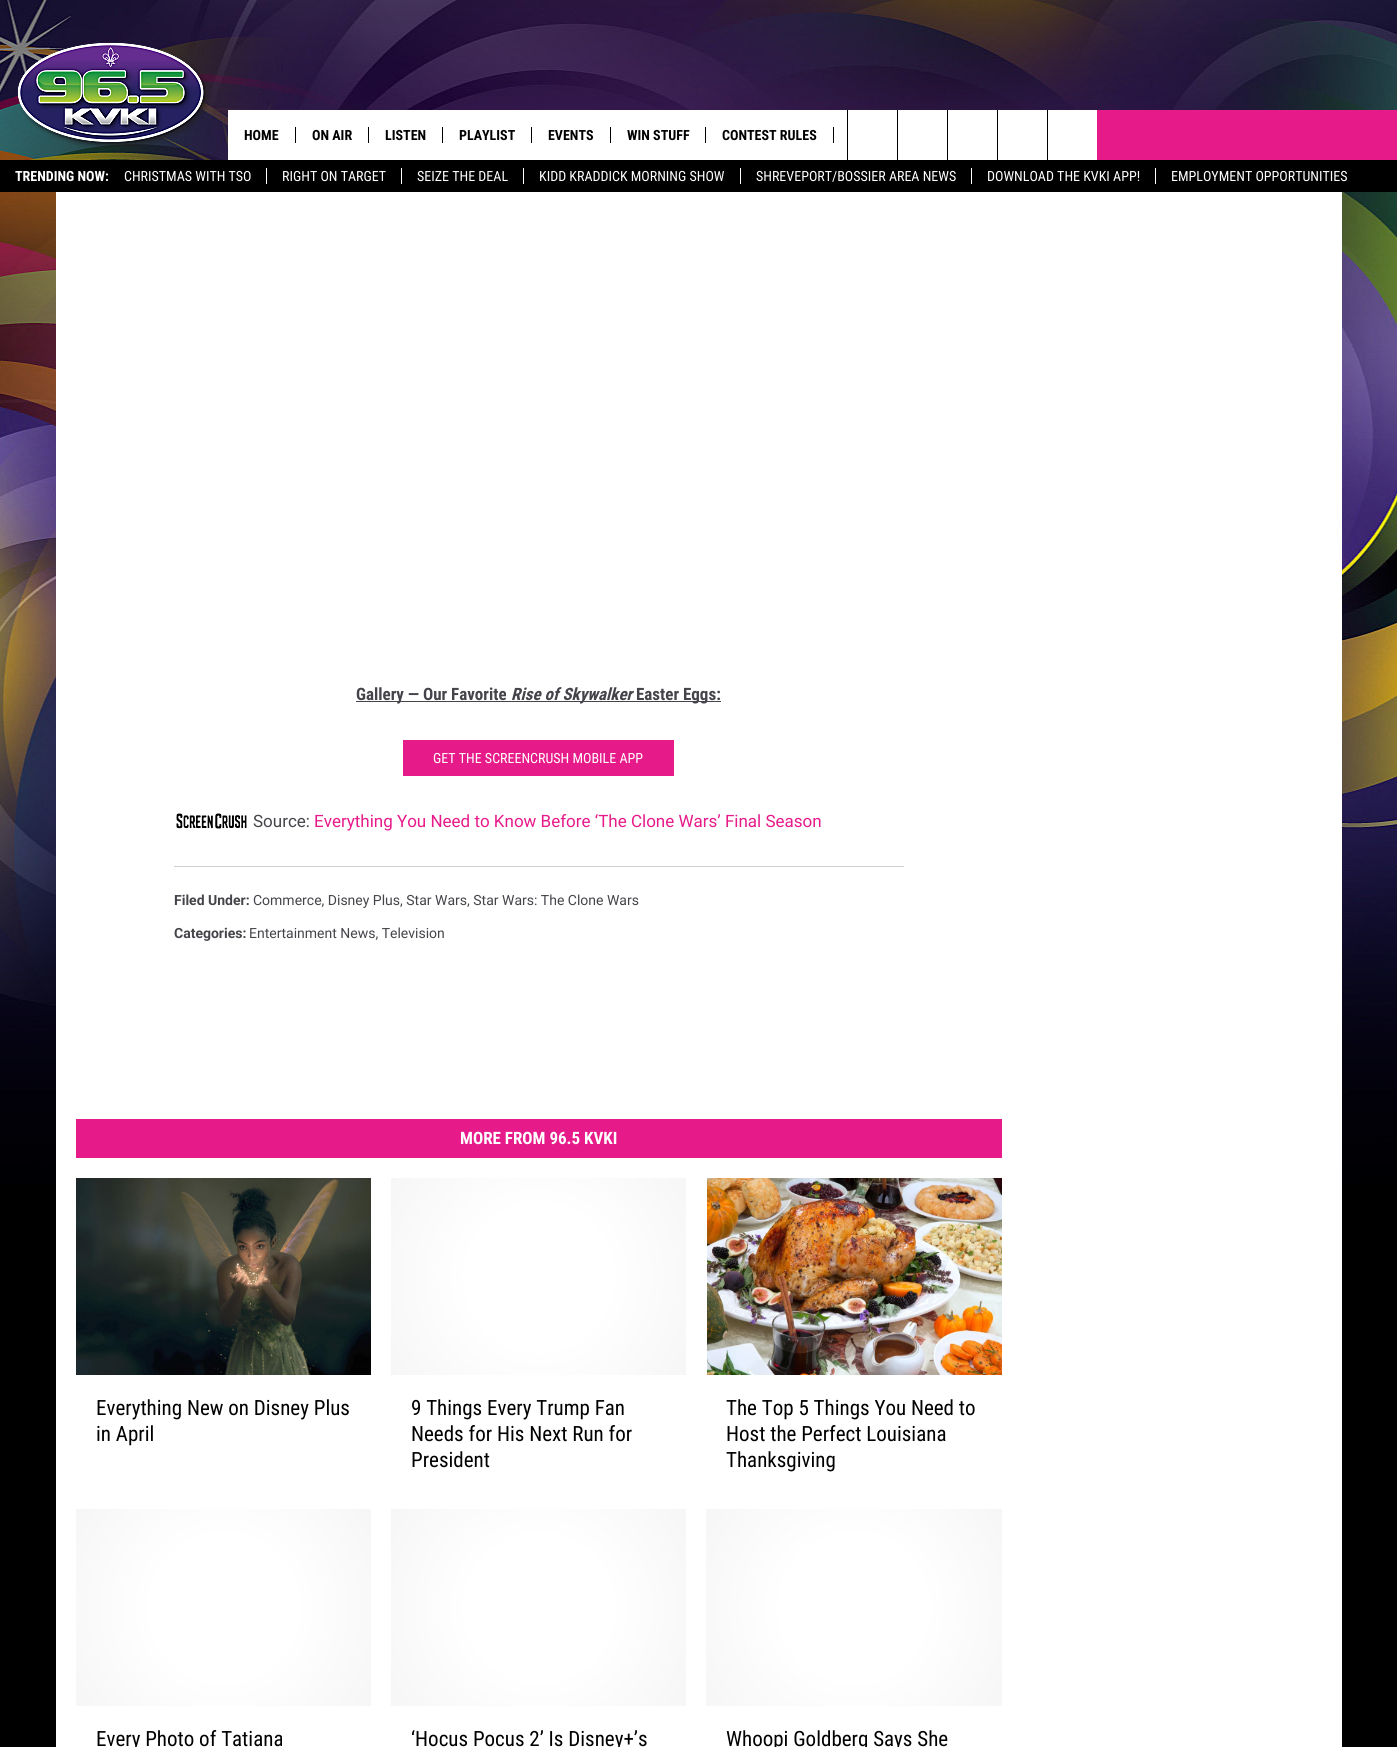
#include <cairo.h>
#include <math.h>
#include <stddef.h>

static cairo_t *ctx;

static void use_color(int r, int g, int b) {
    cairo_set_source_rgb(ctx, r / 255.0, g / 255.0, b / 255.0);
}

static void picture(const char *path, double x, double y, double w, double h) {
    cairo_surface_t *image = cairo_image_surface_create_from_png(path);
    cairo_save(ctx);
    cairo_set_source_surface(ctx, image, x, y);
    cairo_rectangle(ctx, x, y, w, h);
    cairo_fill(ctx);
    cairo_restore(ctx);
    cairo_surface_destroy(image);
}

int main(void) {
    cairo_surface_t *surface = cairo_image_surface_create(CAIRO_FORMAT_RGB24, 1397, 1747);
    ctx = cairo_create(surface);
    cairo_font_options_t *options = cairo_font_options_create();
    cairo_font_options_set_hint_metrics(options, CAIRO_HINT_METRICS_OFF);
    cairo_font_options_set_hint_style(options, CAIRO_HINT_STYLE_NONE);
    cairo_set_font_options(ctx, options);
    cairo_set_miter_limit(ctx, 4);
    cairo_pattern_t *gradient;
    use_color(0, 0, 0);
    cairo_paint(ctx);
    picture("img1.png", 0, 192, 1397, 992);
    picture("img2.png", 0, 0, 1397, 160);
    picture("img3.png", 17, 42, 192, 105);
    use_color(255, 255, 255);
    cairo_rectangle(ctx, 228, 110, 619, 50);
    cairo_fill(ctx);
    cairo_select_font_face(ctx, "Roboto Condensed", CAIRO_FONT_SLANT_NORMAL, CAIRO_FONT_WEIGHT_BOLD);
    cairo_set_font_size(ctx, 14);
    use_color(0, 0, 0);
    cairo_move_to(ctx, 244, 140);
    cairo_show_text(ctx, "HOME");
    cairo_rectangle(ctx, 295, 127, 1, 16);
    cairo_fill(ctx);
    cairo_move_to(ctx, 312, 140);
    cairo_show_text(ctx, "ON AIR");
    cairo_rectangle(ctx, 368, 127, 1, 16);
    cairo_fill(ctx);
    cairo_move_to(ctx, 385, 140);
    cairo_show_text(ctx, "LISTEN");
    cairo_rectangle(ctx, 442, 127, 1, 16);
    cairo_fill(ctx);
    cairo_move_to(ctx, 459, 140);
    cairo_show_text(ctx, "PLAYLIST");
    cairo_rectangle(ctx, 531, 127, 1, 16);
    cairo_fill(ctx);
    cairo_move_to(ctx, 548, 140);
    cairo_show_text(ctx, "EVENTS");
    cairo_rectangle(ctx, 610, 127, 1, 16);
    cairo_fill(ctx);
    cairo_move_to(ctx, 627, 140);
    cairo_show_text(ctx, "WIN STUFF");
    cairo_rectangle(ctx, 705, 127, 1, 16);
    cairo_fill(ctx);
    cairo_move_to(ctx, 722, 140);
    cairo_show_text(ctx, "CONTEST RULES");
    cairo_rectangle(ctx, 833, 127, 1, 16);
    cairo_fill(ctx);
    use_color(255, 255, 255);
    cairo_rectangle(ctx, 848, 110, 49, 50);
    cairo_fill(ctx);
    use_color(0, 0, 0);
    cairo_rectangle(ctx, 847, 110, 1, 50);
    cairo_fill(ctx);
    use_color(255, 255, 255);
    cairo_rectangle(ctx, 898, 110, 199, 50);
    cairo_fill(ctx);
    use_color(0, 0, 0);
    cairo_rectangle(ctx, 897, 110, 1, 50);
    cairo_fill(ctx);
    cairo_rectangle(ctx, 947, 110, 1, 50);
    cairo_fill(ctx);
    cairo_rectangle(ctx, 997, 110, 1, 50);
    cairo_fill(ctx);
    cairo_rectangle(ctx, 1047, 110, 1, 50);
    cairo_fill(ctx);
    use_color(231, 26, 138);
    cairo_rectangle(ctx, 1097, 110, 300, 50);
    cairo_fill(ctx);
    use_color(255, 255, 255);
    cairo_move_to(ctx, 15, 181);
    cairo_show_text(ctx, "TRENDING NOW:");
    cairo_select_font_face(ctx, "Roboto Condensed", CAIRO_FONT_SLANT_NORMAL, CAIRO_FONT_WEIGHT_NORMAL);
    cairo_move_to(ctx, 124, 181);
    cairo_show_text(ctx, "CHRISTMAS WITH TSO");
    cairo_move_to(ctx, 282, 181);
    cairo_show_text(ctx, "RIGHT ON TARGET");
    cairo_rectangle(ctx, 266, 168, 1, 16);
    cairo_fill(ctx);
    cairo_move_to(ctx, 417, 181);
    cairo_show_text(ctx, "SEIZE THE DEAL");
    cairo_rectangle(ctx, 401, 168, 1, 16);
    cairo_fill(ctx);
    cairo_move_to(ctx, 539, 181);
    cairo_show_text(ctx, "KIDD KRADDICK MORNING SHOW");
    cairo_rectangle(ctx, 523, 168, 1, 16);
    cairo_fill(ctx);
    cairo_move_to(ctx, 756, 181);
    cairo_show_text(ctx, "SHREVEPORT/BOSSIER AREA NEWS");
    cairo_rectangle(ctx, 740, 168, 1, 16);
    cairo_fill(ctx);
    cairo_move_to(ctx, 987, 181);
    cairo_show_text(ctx, "DOWNLOAD THE KVKI APP!");
    cairo_rectangle(ctx, 971, 168, 1, 16);
    cairo_fill(ctx);
    cairo_move_to(ctx, 1171, 181);
    cairo_show_text(ctx, "EMPLOYMENT OPPORTUNITIES");
    cairo_rectangle(ctx, 1155, 168, 1, 16);
    cairo_fill(ctx);
    cairo_rectangle(ctx, 56, 192, 1286, 1555);
    cairo_fill(ctx);
    use_color(69, 68, 74);
    cairo_rectangle(ctx, 356, 701, 365, 1);
    cairo_fill(ctx);
    cairo_select_font_face(ctx, "Roboto Condensed", CAIRO_FONT_SLANT_NORMAL, CAIRO_FONT_WEIGHT_BOLD);
    cairo_set_font_size(ctx, 17);
    cairo_move_to(ctx, 356, 700);
    cairo_show_text(ctx, "Gallery — Our Favorite");
    cairo_select_font_face(ctx, "Roboto Condensed", CAIRO_FONT_SLANT_ITALIC, CAIRO_FONT_WEIGHT_BOLD);
    cairo_move_to(ctx, 511, 700);
    cairo_show_text(ctx, "Rise of Skywalker");
    cairo_select_font_face(ctx, "Roboto Condensed", CAIRO_FONT_SLANT_NORMAL, CAIRO_FONT_WEIGHT_BOLD);
    cairo_move_to(ctx, 636, 700);
    cairo_show_text(ctx, "Easter Eggs:");
    use_color(231, 26, 138);
    cairo_rectangle(ctx, 403, 740, 271, 36);
    cairo_fill(ctx);
    cairo_select_font_face(ctx, "Roboto Condensed", CAIRO_FONT_SLANT_NORMAL, CAIRO_FONT_WEIGHT_NORMAL);
    cairo_set_font_size(ctx, 14);
    use_color(255, 255, 255);
    cairo_move_to(ctx, 433, 763);
    cairo_show_text(ctx, "GET THE SCREENCRUSH MOBILE APP");
    picture("img4.png", 176, 813, 71, 16);
    cairo_select_font_face(ctx, "Roboto", CAIRO_FONT_SLANT_NORMAL, CAIRO_FONT_WEIGHT_NORMAL);
    cairo_set_font_size(ctx, 17);
    use_color(69, 68, 74);
    cairo_move_to(ctx, 253, 827);
    cairo_show_text(ctx, "Source:");
    use_color(231, 26, 138);
    cairo_move_to(ctx, 314, 827);
    cairo_show_text(ctx, "Everything You Need to Know Before ‘The Clone Wars’ Final Season");
    use_color(209, 208, 210);
    cairo_rectangle(ctx, 174, 866, 730, 1);
    cairo_fill(ctx);
    cairo_select_font_face(ctx, "Roboto", CAIRO_FONT_SLANT_NORMAL, CAIRO_FONT_WEIGHT_BOLD);
    cairo_set_font_size(ctx, 14);
    use_color(69, 68, 74);
    cairo_move_to(ctx, 174, 905);
    cairo_show_text(ctx, "Filed Under:");
    cairo_select_font_face(ctx, "Roboto", CAIRO_FONT_SLANT_NORMAL, CAIRO_FONT_WEIGHT_NORMAL);
    cairo_move_to(ctx, 253, 905);
    cairo_show_text(ctx, "Commerce, Disney Plus, Star Wars, Star Wars: The Clone Wars");
    cairo_select_font_face(ctx, "Roboto", CAIRO_FONT_SLANT_NORMAL, CAIRO_FONT_WEIGHT_BOLD);
    cairo_move_to(ctx, 174, 938);
    cairo_show_text(ctx, "Categories:");
    cairo_select_font_face(ctx, "Roboto", CAIRO_FONT_SLANT_NORMAL, CAIRO_FONT_WEIGHT_NORMAL);
    cairo_move_to(ctx, 249, 938);
    cairo_show_text(ctx, "Entertainment News, Television");
    use_color(231, 26, 138);
    cairo_rectangle(ctx, 76, 1119, 926, 39);
    cairo_fill(ctx);
    cairo_select_font_face(ctx, "Roboto Condensed", CAIRO_FONT_SLANT_NORMAL, CAIRO_FONT_WEIGHT_BOLD);
    cairo_set_font_size(ctx, 17);
    use_color(255, 255, 255);
    cairo_move_to(ctx, 460, 1144);
    cairo_show_text(ctx, "MORE FROM 96.5 KVKI");
    picture("img5.png", 76, 1178, 295, 197);
    cairo_select_font_face(ctx, "Roboto Condensed", CAIRO_FONT_SLANT_NORMAL, CAIRO_FONT_WEIGHT_NORMAL);
    cairo_set_font_size(ctx, 21);
    use_color(0, 0, 0);
    cairo_move_to(ctx, 96, 1415);
    cairo_show_text(ctx, "Everything New on Disney Plus");
    cairo_move_to(ctx, 96, 1441);
    cairo_show_text(ctx, "in April");
    gradient = cairo_pattern_create_radial(539, 1277, 0, 539, 1277, 177);
    cairo_pattern_add_color_stop_rgba(gradient, 0.4, 1, 1, 1, 1);
    cairo_pattern_add_color_stop_rgba(gradient, 1, 0.965, 0.965, 0.965, 1);
    cairo_set_source(ctx, gradient);
    cairo_pattern_destroy(gradient);
    cairo_rectangle(ctx, 391, 1178, 295, 197);
    cairo_fill(ctx);
    use_color(0, 0, 0);
    cairo_move_to(ctx, 411, 1415);
    cairo_show_text(ctx, "9 Things Every Trump Fan");
    cairo_move_to(ctx, 411, 1441);
    cairo_show_text(ctx, "Needs for His Next Run for");
    cairo_move_to(ctx, 411, 1467);
    cairo_show_text(ctx, "President");
    picture("img6.png", 707, 1178, 295, 197);
    cairo_move_to(ctx, 726, 1415);
    cairo_show_text(ctx, "The Top 5 Things You Need to");
    cairo_move_to(ctx, 726, 1441);
    cairo_show_text(ctx, "Host the Perfect Louisiana");
    cairo_move_to(ctx, 726, 1467);
    cairo_show_text(ctx, "Thanksgiving");
    gradient = cairo_pattern_create_radial(224, 1608, 0, 224, 1608, 177);
    cairo_pattern_add_color_stop_rgba(gradient, 0.4, 1, 1, 1, 1);
    cairo_pattern_add_color_stop_rgba(gradient, 1, 0.965, 0.965, 0.965, 1);
    cairo_set_source(ctx, gradient);
    cairo_pattern_destroy(gradient);
    cairo_rectangle(ctx, 76, 1509, 295, 197);
    cairo_fill(ctx);
    use_color(0, 0, 0);
    cairo_move_to(ctx, 96, 1746);
    cairo_show_text(ctx, "Every Photo of Tatiana");
    gradient = cairo_pattern_create_radial(539, 1608, 0, 539, 1608, 177);
    cairo_pattern_add_color_stop_rgba(gradient, 0.4, 1, 1, 1, 1);
    cairo_pattern_add_color_stop_rgba(gradient, 1, 0.965, 0.965, 0.965, 1);
    cairo_set_source(ctx, gradient);
    cairo_pattern_destroy(gradient);
    cairo_rectangle(ctx, 391, 1509, 295, 197);
    cairo_fill(ctx);
    use_color(0, 0, 0);
    cairo_move_to(ctx, 411, 1746);
    cairo_show_text(ctx, "‘Hocus Pocus 2’ Is Disney+’s");
    gradient = cairo_pattern_create_radial(854, 1608, 0, 854, 1608, 178);
    cairo_pattern_add_color_stop_rgba(gradient, 0.4, 1, 1, 1, 1);
    cairo_pattern_add_color_stop_rgba(gradient, 1, 0.965, 0.965, 0.965, 1);
    cairo_set_source(ctx, gradient);
    cairo_pattern_destroy(gradient);
    cairo_rectangle(ctx, 706, 1509, 296, 197);
    cairo_fill(ctx);
    use_color(0, 0, 0);
    cairo_move_to(ctx, 726, 1746);
    cairo_show_text(ctx, "Whoopi Goldberg Says She");
    cairo_surface_write_to_png(surface, "result.png");
    cairo_font_options_destroy(options);
    cairo_destroy(ctx);
    cairo_surface_destroy(surface);
    return 0;
}
